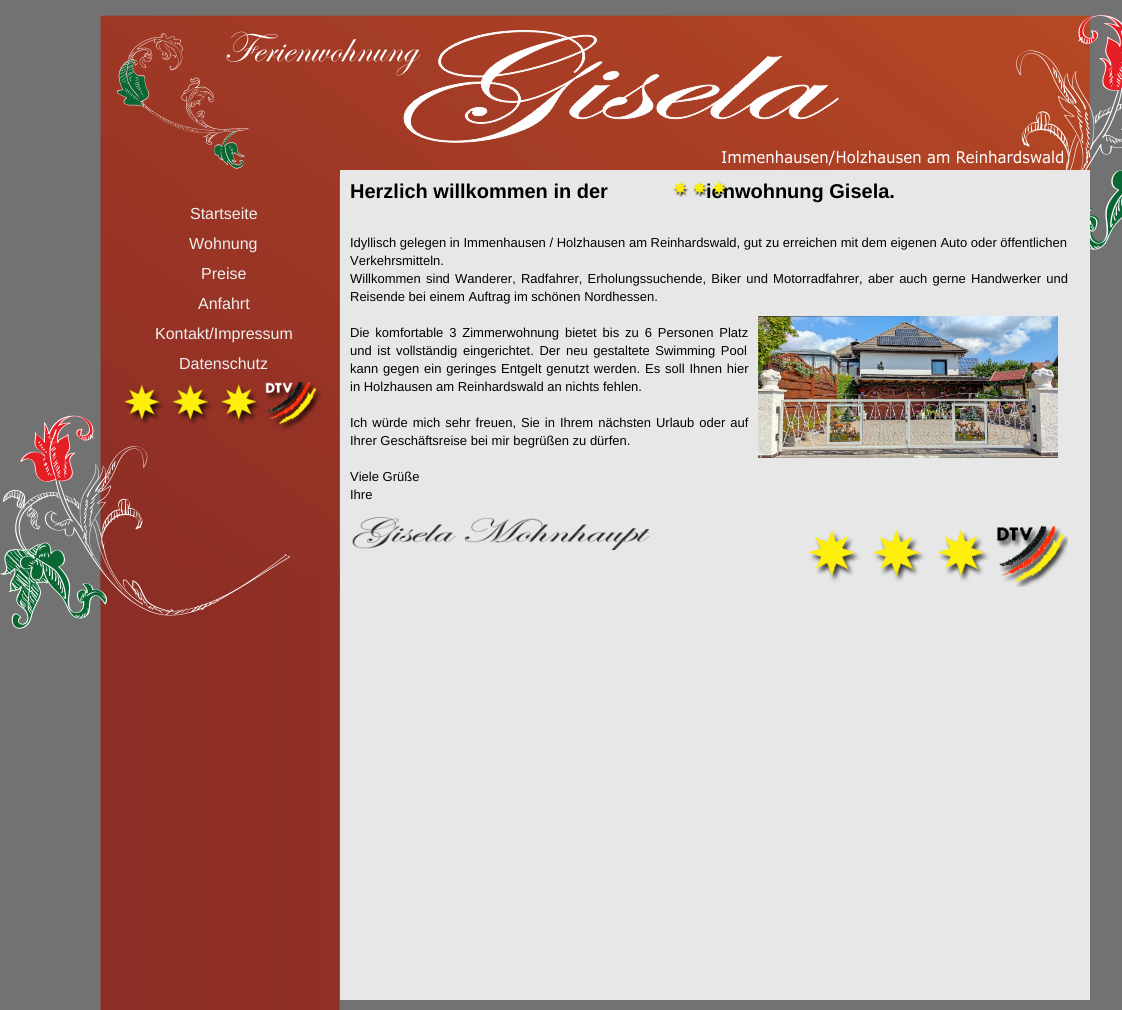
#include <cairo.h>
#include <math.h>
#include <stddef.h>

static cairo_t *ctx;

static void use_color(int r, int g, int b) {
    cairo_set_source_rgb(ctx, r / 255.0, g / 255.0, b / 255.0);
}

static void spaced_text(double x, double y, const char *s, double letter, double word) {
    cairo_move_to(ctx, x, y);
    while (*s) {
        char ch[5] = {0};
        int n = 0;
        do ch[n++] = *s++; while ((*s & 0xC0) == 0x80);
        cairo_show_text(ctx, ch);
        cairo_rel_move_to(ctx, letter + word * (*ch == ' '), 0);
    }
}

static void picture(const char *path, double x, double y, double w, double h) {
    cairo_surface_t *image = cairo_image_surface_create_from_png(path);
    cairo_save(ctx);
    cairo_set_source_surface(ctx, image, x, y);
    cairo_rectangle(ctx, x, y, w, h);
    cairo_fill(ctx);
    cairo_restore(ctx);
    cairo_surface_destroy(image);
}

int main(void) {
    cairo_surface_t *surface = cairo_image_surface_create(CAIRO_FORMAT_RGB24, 1122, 1010);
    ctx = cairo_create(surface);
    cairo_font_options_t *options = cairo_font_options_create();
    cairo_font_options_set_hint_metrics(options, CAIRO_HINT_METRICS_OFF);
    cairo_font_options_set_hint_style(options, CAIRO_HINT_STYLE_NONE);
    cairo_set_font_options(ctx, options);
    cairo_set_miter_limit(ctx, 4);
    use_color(114, 114, 114);
    cairo_paint(ctx);
    picture("img1.png", 100, 15, 990, 576);
    picture("img3.png", 1016, 15, 106, 235);
    use_color(231, 231, 231);
    cairo_rectangle(ctx, 340, 170, 750, 830);
    cairo_fill(ctx);
    cairo_select_font_face(ctx, "Liberation Sans", CAIRO_FONT_SLANT_NORMAL, CAIRO_FONT_WEIGHT_BOLD);
    cairo_set_font_size(ctx, 20);
    use_color(0, 0, 0);
    cairo_move_to(ctx, 706, 198);
    cairo_show_text(ctx, "ienwohnung Gisela.");
    picture("img2.png", 672, 180, 56, 17);
    cairo_select_font_face(ctx, "Liberation Sans", CAIRO_FONT_SLANT_NORMAL, CAIRO_FONT_WEIGHT_NORMAL);
    cairo_set_font_size(ctx, 16);
    use_color(238, 238, 238);
    cairo_move_to(ctx, 190, 219);
    cairo_show_text(ctx, "Startseite");
    cairo_move_to(ctx, 189, 249);
    cairo_show_text(ctx, "Wohnung");
    cairo_move_to(ctx, 201, 279);
    cairo_show_text(ctx, "Preise");
    cairo_move_to(ctx, 198, 309);
    cairo_show_text(ctx, "Anfahrt");
    cairo_move_to(ctx, 155, 339);
    cairo_show_text(ctx, "Kontakt/Impressum");
    cairo_move_to(ctx, 179, 369);
    cairo_show_text(ctx, "Datenschutz");
    cairo_select_font_face(ctx, "Liberation Sans", CAIRO_FONT_SLANT_NORMAL, CAIRO_FONT_WEIGHT_BOLD);
    cairo_set_font_size(ctx, 20);
    use_color(0, 0, 0);
    cairo_move_to(ctx, 350, 198);
    cairo_show_text(ctx, "Herzlich willkommen in der");
    cairo_select_font_face(ctx, "Liberation Sans", CAIRO_FONT_SLANT_NORMAL, CAIRO_FONT_WEIGHT_NORMAL);
    cairo_set_font_size(ctx, 13);
    cairo_move_to(ctx, 350, 247);
    cairo_show_text(ctx, "Idyllisch gelegen in Immenhausen / Holzhausen am Reinhardswald, gut zu erreichen mit dem eigenen Auto oder öffentlichen");
    cairo_move_to(ctx, 350, 265);
    cairo_show_text(ctx, "Verkehrsmitteln.");
    spaced_text(350, 283, "Willkommen sind Wanderer, Radfahrer, Erholungssuchende, Biker und Motorradfahrer, aber auch gerne Handwerker und", 0, 1.6);
    cairo_move_to(ctx, 350, 301);
    cairo_show_text(ctx, "Reisende bei einem Auftrag im schönen Nordhessen.");
    spaced_text(350, 337, "Die komfortable 3 Zimmerwohnung bietet bis zu 6 Personen Platz", 0, 2.25);
    picture("img4.png", 758, 316, 300, 142);
    spaced_text(350, 355, "und ist vollständig eingerichtet. Der neu gestaltete Swimming Pool", 0, 2);
    spaced_text(350, 373, "kann gegen ein geringes Entgelt genutzt werden. Es soll Ihnen hier", 0, 1.25);
    cairo_move_to(ctx, 350, 391);
    cairo_show_text(ctx, "in Holzhausen am Reinhardswald an nichts fehlen.");
    spaced_text(350, 427, "Ich würde mich sehr freuen, Sie in Ihrem nächsten Urlaub oder auf", 0, 1.4);
    cairo_move_to(ctx, 350, 445);
    cairo_show_text(ctx, "Ihrer Geschäftsreise bei mir begrüßen zu dürfen.");
    cairo_move_to(ctx, 350, 481);
    cairo_show_text(ctx, "Viele Grüße");
    cairo_move_to(ctx, 350, 499);
    cairo_show_text(ctx, "Ihre");
    picture("img5.png", 352, 517, 298, 33);
    picture("img6.png", 808, 525, 260, 62);
    picture("img9.png", 100, 570, 240, 440);
    picture("img8.png", 0, 415, 291, 214);
    picture("img7.png", 124, 381, 198, 50);
    cairo_surface_write_to_png(surface, "result.png");
    cairo_font_options_destroy(options);
    cairo_destroy(ctx);
    cairo_surface_destroy(surface);
    return 0;
}
